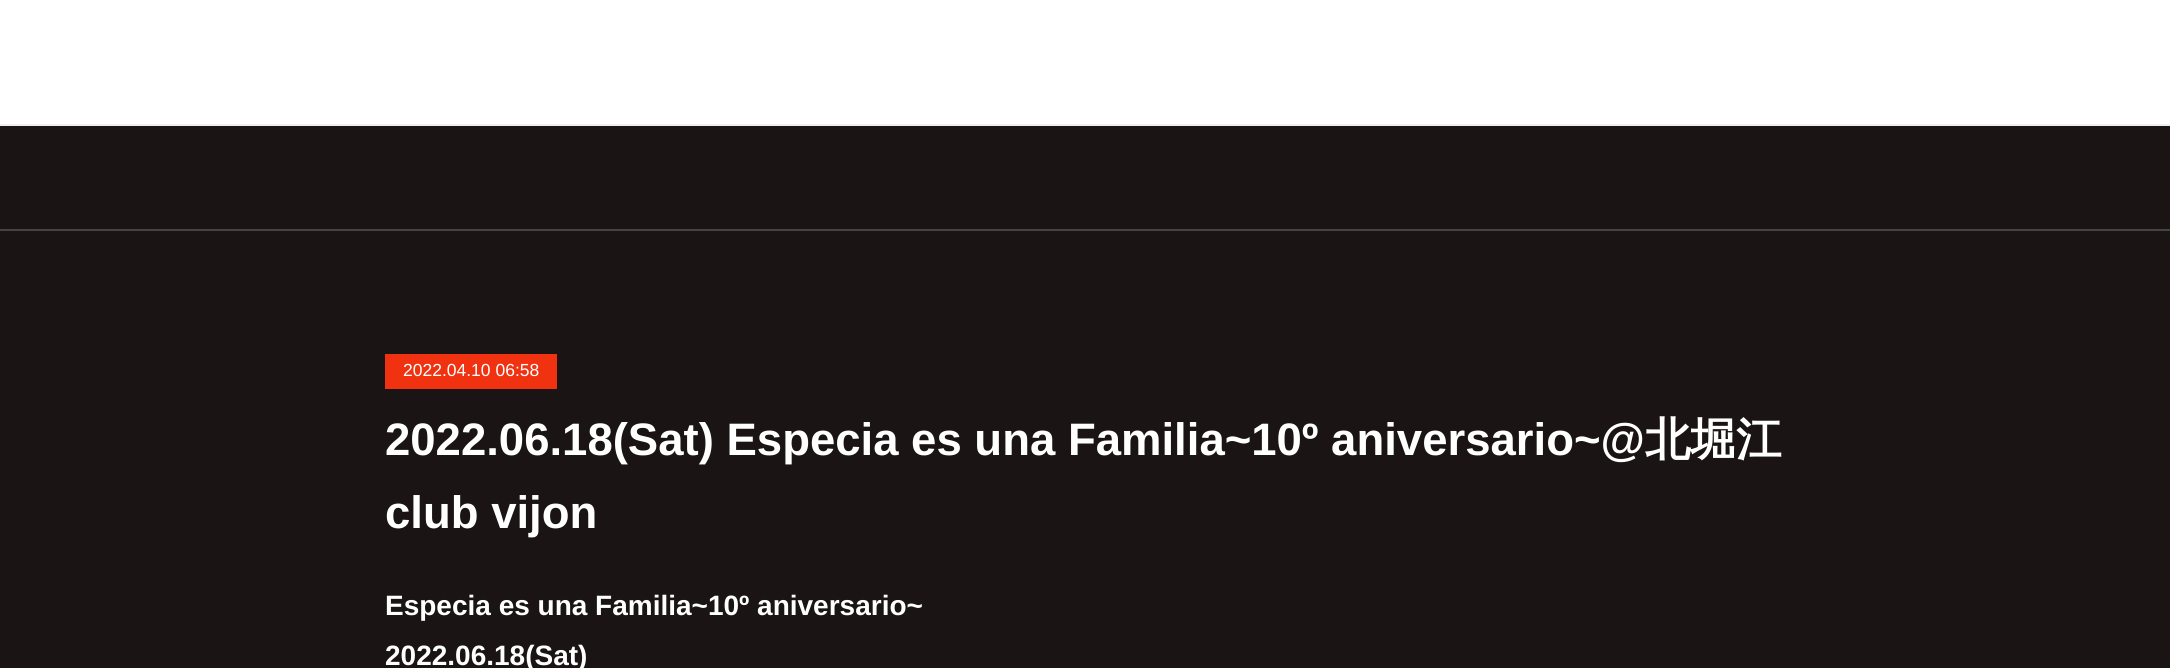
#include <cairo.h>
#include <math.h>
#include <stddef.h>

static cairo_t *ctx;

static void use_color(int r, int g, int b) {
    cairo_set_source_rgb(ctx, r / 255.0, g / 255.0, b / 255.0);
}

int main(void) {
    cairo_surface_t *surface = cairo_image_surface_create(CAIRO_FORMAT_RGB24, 2170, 668);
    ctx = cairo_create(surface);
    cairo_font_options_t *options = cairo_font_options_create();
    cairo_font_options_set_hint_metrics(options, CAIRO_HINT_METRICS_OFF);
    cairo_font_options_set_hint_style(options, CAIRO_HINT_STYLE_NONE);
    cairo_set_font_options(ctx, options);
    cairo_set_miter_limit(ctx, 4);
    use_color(26, 20, 20);
    cairo_paint(ctx);
    use_color(255, 255, 255);
    cairo_rectangle(ctx, 0, 0, 2170, 124);
    cairo_fill(ctx);
    use_color(238, 238, 238);
    cairo_rectangle(ctx, 0, 124, 2170, 2);
    cairo_fill(ctx);
    use_color(68, 68, 68);
    cairo_rectangle(ctx, 0, 229, 2170, 2);
    cairo_fill(ctx);
    use_color(240, 50, 17);
    cairo_rectangle(ctx, 385, 354, 172, 35);
    cairo_fill(ctx);
    cairo_select_font_face(ctx, "Liberation Sans", CAIRO_FONT_SLANT_NORMAL, CAIRO_FONT_WEIGHT_NORMAL);
    cairo_set_font_size(ctx, 17.5);
    use_color(255, 255, 255);
    cairo_move_to(ctx, 403, 376);
    cairo_show_text(ctx, "2022.04.10 06:58");
    cairo_select_font_face(ctx, "Liberation Sans", CAIRO_FONT_SLANT_NORMAL, CAIRO_FONT_WEIGHT_BOLD);
    cairo_set_font_size(ctx, 45.5);
    cairo_move_to(ctx, 385, 455);
    cairo_show_text(ctx, "2022.06.18(Sat) Especia es una Familia~10º aniversario~@");
    cairo_select_font_face(ctx, "WenQuanYi Zen Hei", CAIRO_FONT_SLANT_NORMAL, CAIRO_FONT_WEIGHT_BOLD);
    cairo_move_to(ctx, 1645, 455);
    cairo_show_text(ctx, "北堀江");
    cairo_select_font_face(ctx, "Liberation Sans", CAIRO_FONT_SLANT_NORMAL, CAIRO_FONT_WEIGHT_BOLD);
    cairo_move_to(ctx, 385, 528);
    cairo_show_text(ctx, "club vijon");
    cairo_set_font_size(ctx, 28);
    cairo_move_to(ctx, 385, 615);
    cairo_show_text(ctx, "Especia es una Familia~10º aniversario~");
    cairo_move_to(ctx, 385, 665);
    cairo_show_text(ctx, "2022.06.18(Sat)");
    cairo_surface_write_to_png(surface, "result.png");
    cairo_font_options_destroy(options);
    cairo_destroy(ctx);
    cairo_surface_destroy(surface);
    return 0;
}
